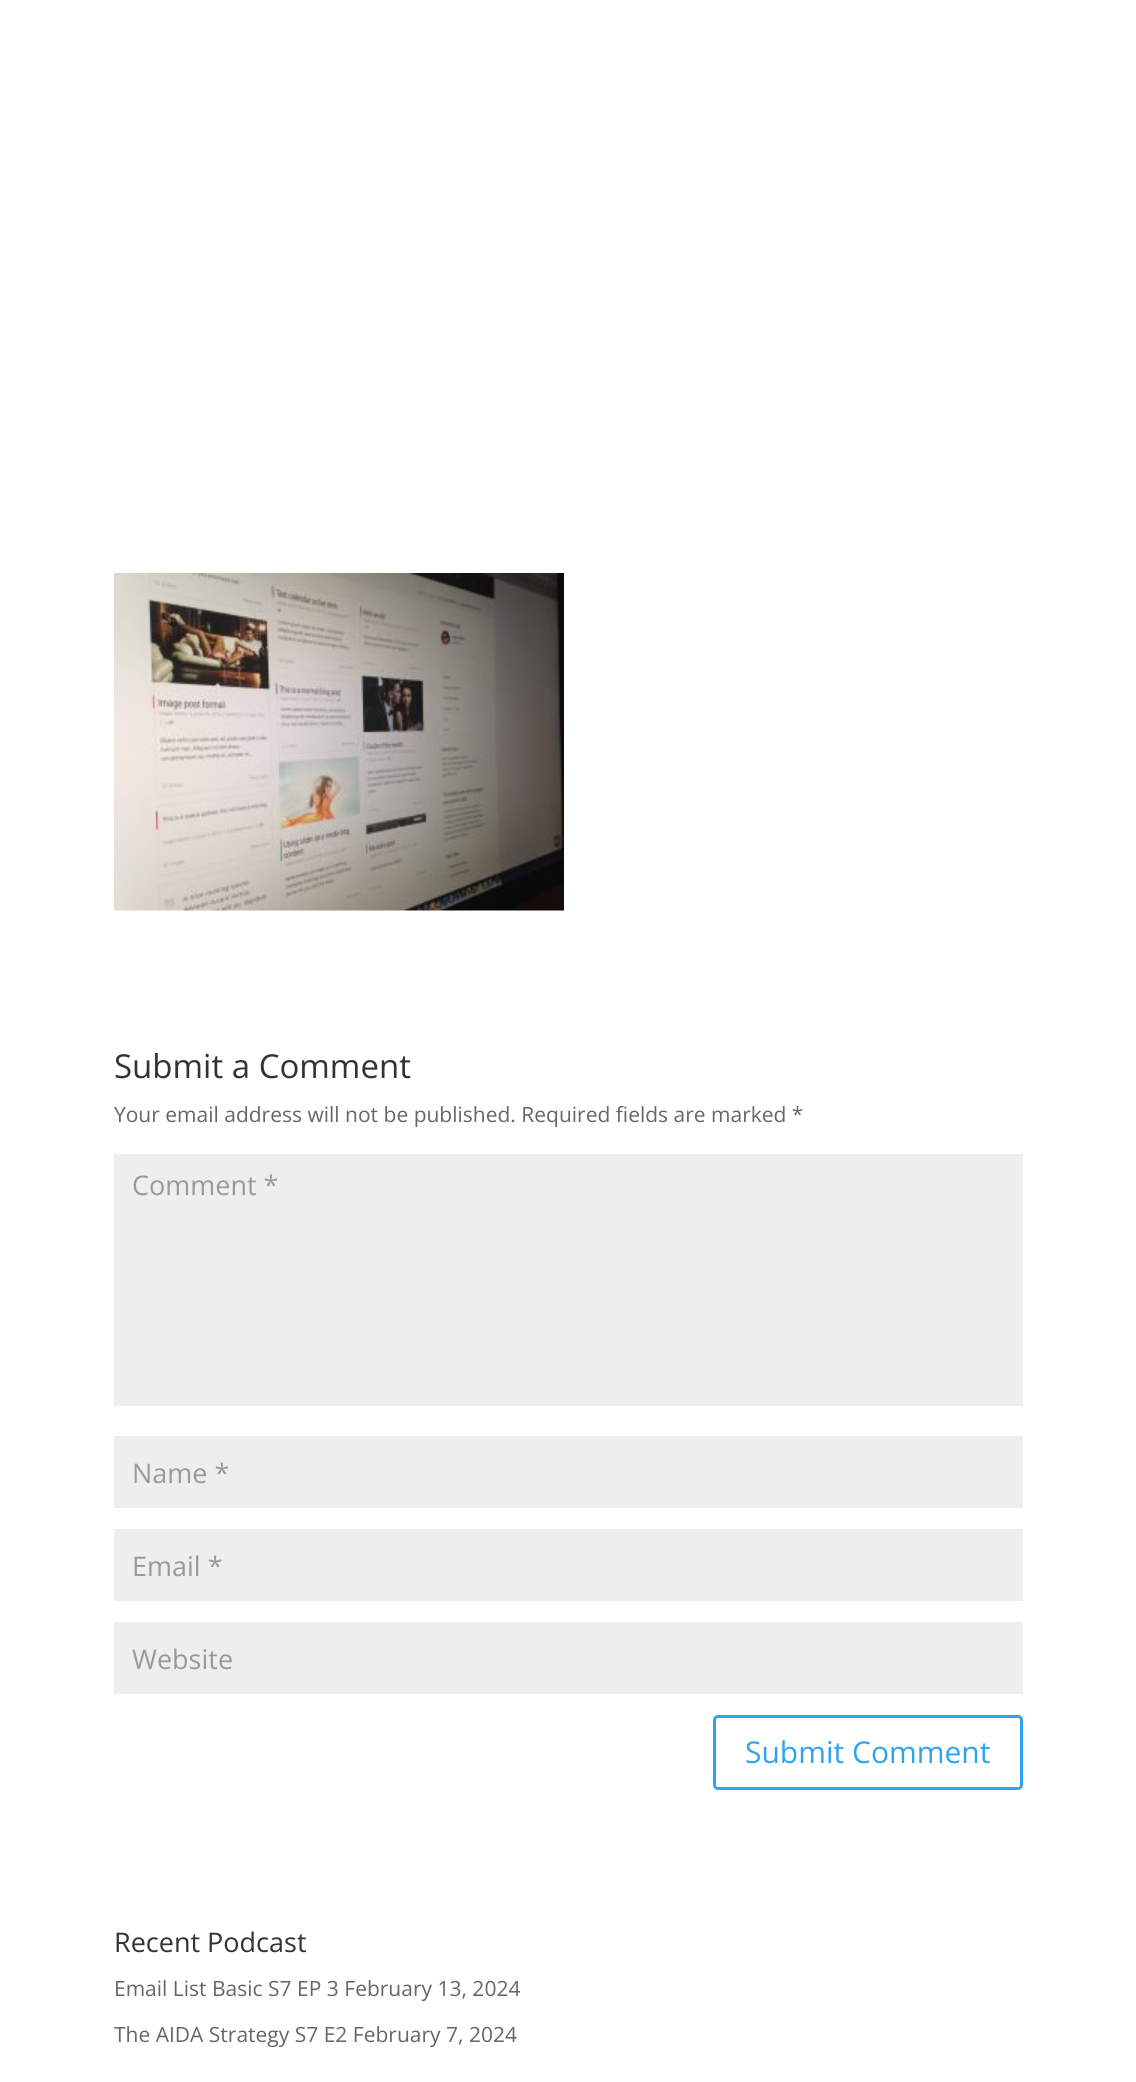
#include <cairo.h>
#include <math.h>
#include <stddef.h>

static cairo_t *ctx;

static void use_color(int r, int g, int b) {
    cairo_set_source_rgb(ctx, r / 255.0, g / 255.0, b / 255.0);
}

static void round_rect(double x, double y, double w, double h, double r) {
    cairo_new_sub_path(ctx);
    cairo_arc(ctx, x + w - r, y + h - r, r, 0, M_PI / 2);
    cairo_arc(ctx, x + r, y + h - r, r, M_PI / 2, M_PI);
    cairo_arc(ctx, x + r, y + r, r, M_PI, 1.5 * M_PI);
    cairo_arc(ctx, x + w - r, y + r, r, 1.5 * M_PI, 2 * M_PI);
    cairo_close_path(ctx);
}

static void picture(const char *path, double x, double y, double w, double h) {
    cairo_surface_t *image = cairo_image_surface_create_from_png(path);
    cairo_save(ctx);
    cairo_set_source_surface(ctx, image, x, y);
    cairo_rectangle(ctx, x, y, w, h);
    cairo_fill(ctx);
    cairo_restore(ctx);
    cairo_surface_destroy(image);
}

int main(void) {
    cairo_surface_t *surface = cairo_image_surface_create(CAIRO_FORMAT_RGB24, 1136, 2082);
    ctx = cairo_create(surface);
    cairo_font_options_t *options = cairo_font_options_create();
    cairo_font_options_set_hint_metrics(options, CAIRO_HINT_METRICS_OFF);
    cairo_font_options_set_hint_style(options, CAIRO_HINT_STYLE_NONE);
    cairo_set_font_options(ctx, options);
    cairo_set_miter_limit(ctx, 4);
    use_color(255, 255, 255);
    cairo_paint(ctx);
    picture("img1.png", 114, 573, 450, 338);
    cairo_select_font_face(ctx, "Open Sans", CAIRO_FONT_SLANT_NORMAL, CAIRO_FONT_WEIGHT_NORMAL);
    cairo_set_font_size(ctx, 33);
    use_color(51, 51, 51);
    cairo_move_to(ctx, 114, 1078);
    cairo_show_text(ctx, "Submit a Comment");
    cairo_set_font_size(ctx, 21);
    use_color(102, 102, 102);
    cairo_move_to(ctx, 114, 1122);
    cairo_show_text(ctx, "Your email address will not be published. Required fields are marked *");
    use_color(238, 238, 238);
    cairo_rectangle(ctx, 114, 1154, 909, 252);
    cairo_fill(ctx);
    cairo_set_font_size(ctx, 27);
    use_color(153, 153, 153);
    cairo_move_to(ctx, 132, 1195);
    cairo_show_text(ctx, "Comment *");
    use_color(238, 238, 238);
    cairo_rectangle(ctx, 114, 1436, 909, 72);
    cairo_fill(ctx);
    use_color(153, 153, 153);
    cairo_move_to(ctx, 132, 1483);
    cairo_show_text(ctx, "Name *");
    use_color(238, 238, 238);
    cairo_rectangle(ctx, 114, 1529, 909, 72);
    cairo_fill(ctx);
    use_color(153, 153, 153);
    cairo_move_to(ctx, 132, 1576);
    cairo_show_text(ctx, "Email *");
    use_color(238, 238, 238);
    cairo_rectangle(ctx, 114, 1622, 909, 72);
    cairo_fill(ctx);
    use_color(153, 153, 153);
    cairo_move_to(ctx, 132, 1669);
    cairo_show_text(ctx, "Website");
    round_rect(714.5, 1716.5, 307, 72, 3.5);
    use_color(46, 163, 242);
    cairo_set_line_width(ctx, 3);
    cairo_stroke(ctx);
    cairo_set_font_size(ctx, 30);
    cairo_move_to(ctx, 745, 1763);
    cairo_show_text(ctx, "Submit Comment");
    cairo_set_font_size(ctx, 27);
    use_color(51, 51, 51);
    cairo_move_to(ctx, 114, 1952);
    cairo_show_text(ctx, "Recent Podcast");
    cairo_set_font_size(ctx, 21);
    use_color(102, 102, 102);
    cairo_move_to(ctx, 114, 1996);
    cairo_show_text(ctx, "Email List Basic S7 EP 3 February 13, 2024");
    cairo_move_to(ctx, 114, 2042);
    cairo_show_text(ctx, "The AIDA Strategy S7 E2 February 7, 2024");
    cairo_surface_write_to_png(surface, "result.png");
    cairo_font_options_destroy(options);
    cairo_destroy(ctx);
    cairo_surface_destroy(surface);
    return 0;
}
